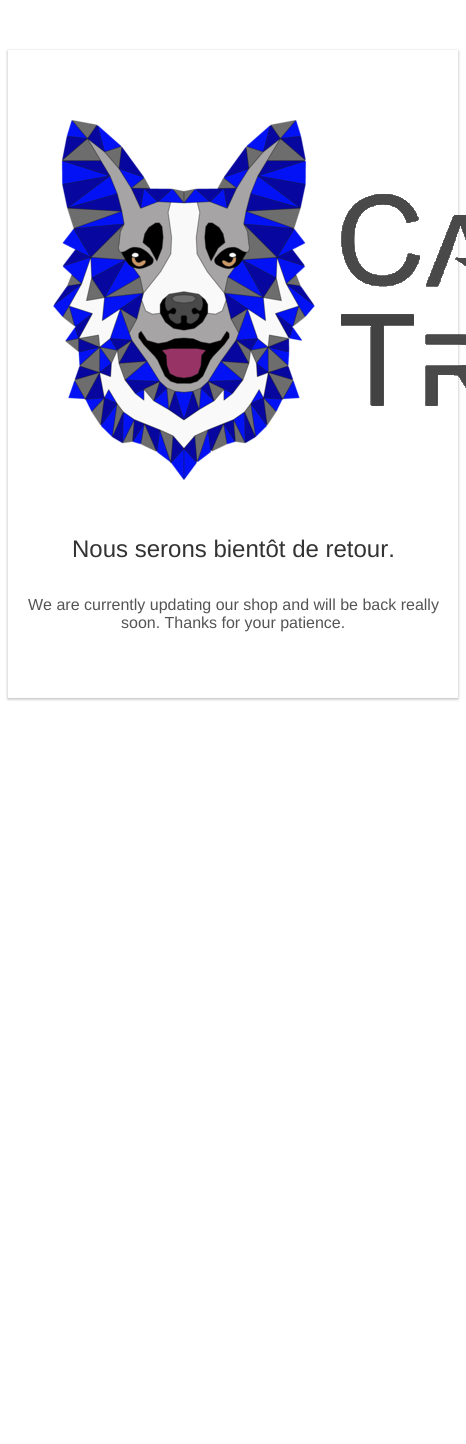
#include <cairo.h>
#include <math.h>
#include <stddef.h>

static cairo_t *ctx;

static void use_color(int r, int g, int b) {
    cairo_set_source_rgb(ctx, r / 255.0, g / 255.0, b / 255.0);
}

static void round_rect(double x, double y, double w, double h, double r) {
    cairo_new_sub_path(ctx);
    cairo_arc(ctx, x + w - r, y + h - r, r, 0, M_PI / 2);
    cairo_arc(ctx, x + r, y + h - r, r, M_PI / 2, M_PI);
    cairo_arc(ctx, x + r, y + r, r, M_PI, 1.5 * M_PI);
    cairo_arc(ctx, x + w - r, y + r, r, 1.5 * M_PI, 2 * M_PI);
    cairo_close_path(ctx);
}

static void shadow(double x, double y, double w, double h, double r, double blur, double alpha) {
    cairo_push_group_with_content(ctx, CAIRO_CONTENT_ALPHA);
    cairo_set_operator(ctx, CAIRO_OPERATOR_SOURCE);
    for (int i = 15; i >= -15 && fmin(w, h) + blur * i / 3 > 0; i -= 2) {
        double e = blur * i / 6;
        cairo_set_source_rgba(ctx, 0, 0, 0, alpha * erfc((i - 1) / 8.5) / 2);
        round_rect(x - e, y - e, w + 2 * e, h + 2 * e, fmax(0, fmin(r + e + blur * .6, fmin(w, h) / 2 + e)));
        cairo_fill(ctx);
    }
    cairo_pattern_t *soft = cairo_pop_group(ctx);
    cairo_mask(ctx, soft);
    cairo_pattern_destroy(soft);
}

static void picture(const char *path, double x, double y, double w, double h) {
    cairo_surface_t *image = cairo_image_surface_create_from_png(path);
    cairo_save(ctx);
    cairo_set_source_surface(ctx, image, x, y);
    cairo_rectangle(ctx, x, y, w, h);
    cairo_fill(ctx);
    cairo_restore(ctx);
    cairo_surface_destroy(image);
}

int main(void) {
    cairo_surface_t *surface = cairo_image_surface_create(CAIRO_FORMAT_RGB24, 466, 1444);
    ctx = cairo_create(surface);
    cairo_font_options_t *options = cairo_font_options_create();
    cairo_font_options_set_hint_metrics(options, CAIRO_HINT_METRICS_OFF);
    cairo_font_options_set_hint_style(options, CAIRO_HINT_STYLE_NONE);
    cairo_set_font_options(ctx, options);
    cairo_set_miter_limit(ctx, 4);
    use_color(255, 255, 255);
    cairo_paint(ctx);
    cairo_save(ctx);
    cairo_set_fill_rule(ctx, CAIRO_FILL_RULE_EVEN_ODD);
    cairo_new_path(ctx);
    cairo_move_to(ctx, 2, 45);
    cairo_line_to(ctx, 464, 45);
    cairo_line_to(ctx, 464, 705);
    cairo_line_to(ctx, 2, 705);
    cairo_close_path(ctx);
    cairo_move_to(ctx, 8, 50);
    cairo_line_to(ctx, 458, 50);
    cairo_line_to(ctx, 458, 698);
    cairo_line_to(ctx, 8, 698);
    cairo_close_path(ctx);
    cairo_clip(ctx);
    use_color(0, 0, 0);
    shadow(8, 51, 450, 648, 0, 1.5, 0.3);
    cairo_restore(ctx);
    picture("img1.png", 53, 120, 413, 360);
    cairo_select_font_face(ctx, "Liberation Sans", CAIRO_FONT_SLANT_NORMAL, CAIRO_FONT_WEIGHT_NORMAL);
    cairo_set_font_size(ctx, 24);
    use_color(51, 51, 51);
    cairo_move_to(ctx, 72, 557);
    cairo_show_text(ctx, "Nous serons bientôt de retour.");
    cairo_set_font_size(ctx, 16);
    use_color(85, 84, 84);
    cairo_move_to(ctx, 28, 610);
    cairo_show_text(ctx, "We are currently updating our shop and will be back really");
    cairo_move_to(ctx, 121, 628);
    cairo_show_text(ctx, "soon. Thanks for your patience.");
    cairo_surface_write_to_png(surface, "result.png");
    cairo_font_options_destroy(options);
    cairo_destroy(ctx);
    cairo_surface_destroy(surface);
    return 0;
}
